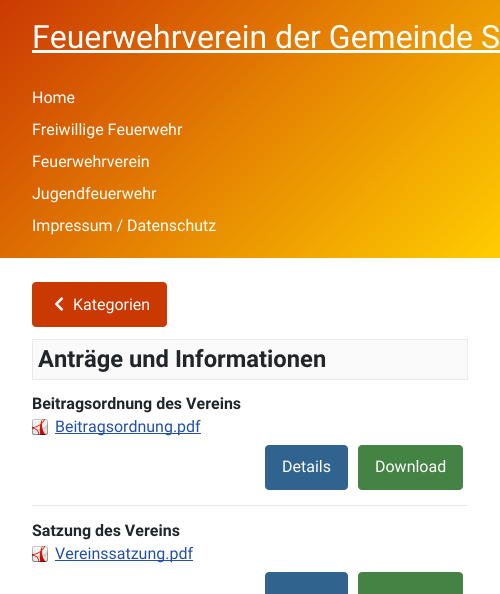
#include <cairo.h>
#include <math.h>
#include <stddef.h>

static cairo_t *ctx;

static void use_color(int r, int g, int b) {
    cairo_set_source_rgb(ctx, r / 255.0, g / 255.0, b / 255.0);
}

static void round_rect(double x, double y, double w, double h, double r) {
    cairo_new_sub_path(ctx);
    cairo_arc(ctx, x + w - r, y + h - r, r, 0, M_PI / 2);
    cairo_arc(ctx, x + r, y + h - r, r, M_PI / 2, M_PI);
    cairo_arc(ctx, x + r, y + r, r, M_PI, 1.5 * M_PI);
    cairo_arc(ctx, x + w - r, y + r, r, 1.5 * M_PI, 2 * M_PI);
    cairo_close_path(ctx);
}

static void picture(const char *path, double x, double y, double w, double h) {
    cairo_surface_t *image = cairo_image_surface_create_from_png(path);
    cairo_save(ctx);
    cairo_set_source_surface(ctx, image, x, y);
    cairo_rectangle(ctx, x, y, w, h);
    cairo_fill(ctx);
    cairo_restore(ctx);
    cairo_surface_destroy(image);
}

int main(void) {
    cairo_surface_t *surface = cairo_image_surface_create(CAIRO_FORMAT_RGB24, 500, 594);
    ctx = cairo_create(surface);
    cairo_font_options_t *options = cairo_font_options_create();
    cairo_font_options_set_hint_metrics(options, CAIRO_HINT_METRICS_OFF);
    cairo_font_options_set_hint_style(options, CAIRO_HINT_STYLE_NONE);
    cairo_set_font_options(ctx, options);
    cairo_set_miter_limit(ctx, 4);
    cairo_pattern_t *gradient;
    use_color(255, 255, 255);
    cairo_paint(ctx);
    gradient = cairo_pattern_create_linear(60, -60, 440, 319);
    cairo_pattern_add_color_stop_rgba(gradient, 0, 0.796, 0.224, 0.012, 1);
    cairo_pattern_add_color_stop_rgba(gradient, 1, 1, 0.804, 0, 1);
    cairo_set_source(ctx, gradient);
    cairo_pattern_destroy(gradient);
    cairo_rectangle(ctx, 0, 0, 500, 258);
    cairo_fill(ctx);
    cairo_select_font_face(ctx, "Roboto", CAIRO_FONT_SLANT_NORMAL, CAIRO_FONT_WEIGHT_NORMAL);
    cairo_set_font_size(ctx, 32);
    use_color(255, 255, 255);
    cairo_move_to(ctx, 32, 48);
    cairo_show_text(ctx, "Feuerwehrverein der Gemeinde S");
    cairo_rectangle(ctx, 32, 50, 468, 3);
    cairo_fill(ctx);
    cairo_set_font_size(ctx, 16);
    cairo_move_to(ctx, 32, 103);
    cairo_show_text(ctx, "Home");
    cairo_move_to(ctx, 32, 135);
    cairo_show_text(ctx, "Freiwillige Feuerwehr");
    cairo_move_to(ctx, 32, 167);
    cairo_show_text(ctx, "Feuerwehrverein");
    cairo_move_to(ctx, 32, 199);
    cairo_show_text(ctx, "Jugendfeuerwehr");
    cairo_move_to(ctx, 32, 231);
    cairo_show_text(ctx, "Impressum / Datenschutz");
    use_color(203, 57, 3);
    round_rect(32.5, 282.5, 134, 44, 3.5);
    cairo_fill_preserve(ctx);
    cairo_set_line_width(ctx, 1);
    cairo_stroke(ctx);
    picture("img1.png", 54, 297, 10, 14);
    use_color(255, 255, 255);
    cairo_move_to(ctx, 73, 310);
    cairo_show_text(ctx, "Kategorien");
    use_color(250, 250, 250);
    cairo_rectangle(ctx, 32.5, 339.5, 435, 40);
    cairo_fill_preserve(ctx);
    use_color(233, 233, 233);
    cairo_stroke(ctx);
    cairo_select_font_face(ctx, "Roboto", CAIRO_FONT_SLANT_NORMAL, CAIRO_FONT_WEIGHT_BOLD);
    cairo_set_font_size(ctx, 23.75);
    use_color(34, 38, 42);
    cairo_move_to(ctx, 38, 367);
    cairo_show_text(ctx, "Anträge und Informationen");
    cairo_set_font_size(ctx, 16);
    cairo_move_to(ctx, 32, 409);
    cairo_show_text(ctx, "Beitragsordnung des Vereins");
    picture("img2.png", 32, 419, 16, 16);
    use_color(34, 79, 170);
    cairo_rectangle(ctx, 55, 433, 146, 1);
    cairo_fill(ctx);
    cairo_select_font_face(ctx, "Roboto", CAIRO_FONT_SLANT_NORMAL, CAIRO_FONT_WEIGHT_NORMAL);
    cairo_move_to(ctx, 55, 432);
    cairo_show_text(ctx, "Beitragsordnung.pdf");
    use_color(48, 99, 141);
    round_rect(265.5, 445.5, 82, 44, 3.5);
    cairo_fill_preserve(ctx);
    cairo_stroke(ctx);
    use_color(255, 255, 255);
    cairo_move_to(ctx, 282, 472);
    cairo_show_text(ctx, "Details");
    use_color(68, 131, 68);
    round_rect(358.5, 445.5, 104, 44, 3.5);
    cairo_fill_preserve(ctx);
    cairo_stroke(ctx);
    use_color(255, 255, 255);
    cairo_move_to(ctx, 375, 472);
    cairo_show_text(ctx, "Download");
    use_color(233, 233, 233);
    cairo_rectangle(ctx, 32, 505, 436, 1);
    cairo_fill(ctx);
    cairo_select_font_face(ctx, "Roboto", CAIRO_FONT_SLANT_NORMAL, CAIRO_FONT_WEIGHT_BOLD);
    use_color(34, 38, 42);
    cairo_move_to(ctx, 32, 536);
    cairo_show_text(ctx, "Satzung des Vereins");
    picture("img2.png", 32, 546, 16, 16);
    use_color(34, 79, 170);
    cairo_rectangle(ctx, 55, 560, 138, 1);
    cairo_fill(ctx);
    cairo_select_font_face(ctx, "Roboto", CAIRO_FONT_SLANT_NORMAL, CAIRO_FONT_WEIGHT_NORMAL);
    cairo_move_to(ctx, 55, 559);
    cairo_show_text(ctx, "Vereinssatzung.pdf");
    use_color(48, 99, 141);
    round_rect(265.5, 572.5, 82, 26, 3.5);
    cairo_fill_preserve(ctx);
    cairo_stroke(ctx);
    use_color(68, 131, 68);
    round_rect(358.5, 572.5, 104, 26, 3.5);
    cairo_fill_preserve(ctx);
    cairo_stroke(ctx);
    cairo_surface_write_to_png(surface, "result.png");
    cairo_font_options_destroy(options);
    cairo_destroy(ctx);
    cairo_surface_destroy(surface);
    return 0;
}
